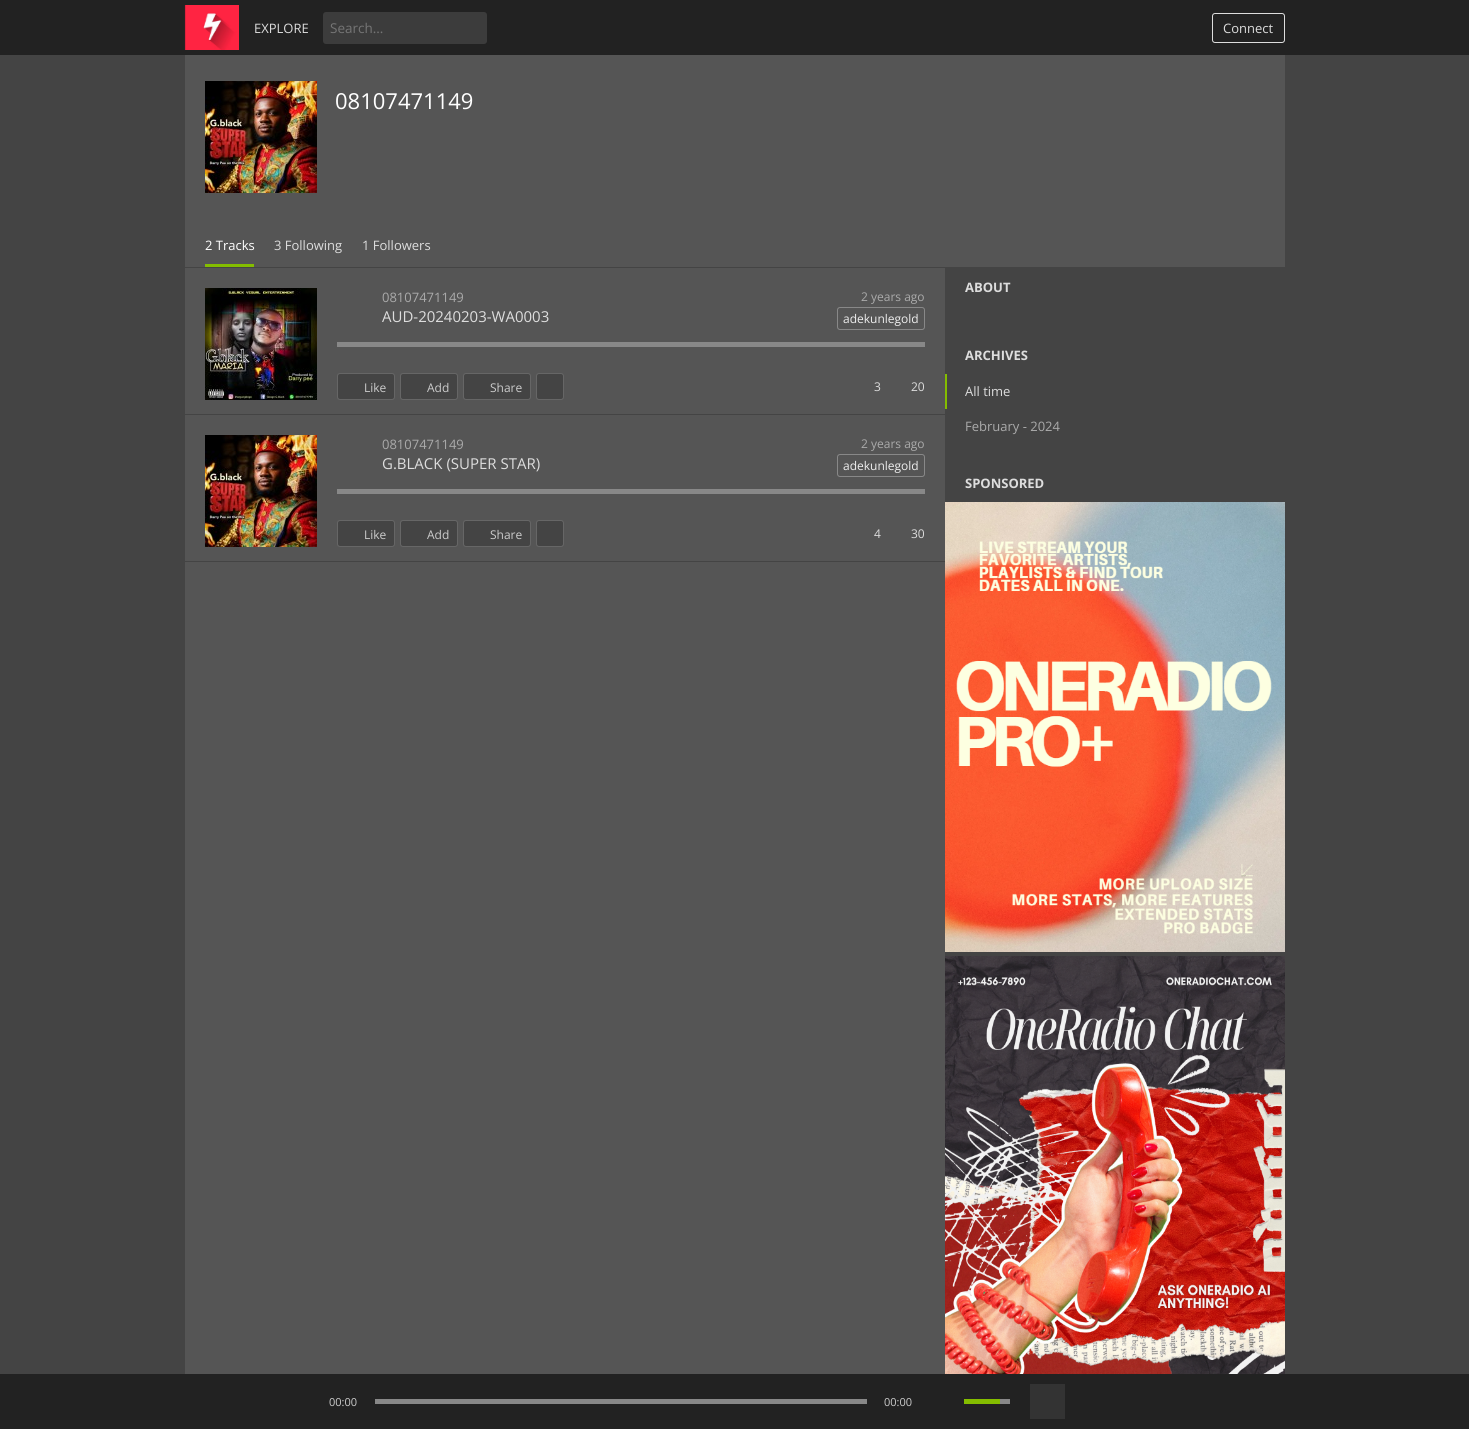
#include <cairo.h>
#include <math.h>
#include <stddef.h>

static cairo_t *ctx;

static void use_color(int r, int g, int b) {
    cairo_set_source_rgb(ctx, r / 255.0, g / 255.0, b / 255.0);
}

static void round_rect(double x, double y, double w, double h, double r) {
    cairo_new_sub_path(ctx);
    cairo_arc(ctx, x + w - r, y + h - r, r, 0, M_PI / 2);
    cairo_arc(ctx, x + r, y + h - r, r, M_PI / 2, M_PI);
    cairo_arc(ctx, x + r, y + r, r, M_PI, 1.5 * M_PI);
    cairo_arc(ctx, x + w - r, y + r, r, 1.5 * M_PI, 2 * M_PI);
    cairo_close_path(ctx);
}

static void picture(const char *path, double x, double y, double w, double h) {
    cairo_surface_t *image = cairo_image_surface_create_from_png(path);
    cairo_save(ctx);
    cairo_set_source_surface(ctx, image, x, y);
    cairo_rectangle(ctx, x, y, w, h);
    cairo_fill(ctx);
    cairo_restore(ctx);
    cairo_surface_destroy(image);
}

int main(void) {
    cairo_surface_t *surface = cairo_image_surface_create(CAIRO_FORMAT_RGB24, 1469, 1429);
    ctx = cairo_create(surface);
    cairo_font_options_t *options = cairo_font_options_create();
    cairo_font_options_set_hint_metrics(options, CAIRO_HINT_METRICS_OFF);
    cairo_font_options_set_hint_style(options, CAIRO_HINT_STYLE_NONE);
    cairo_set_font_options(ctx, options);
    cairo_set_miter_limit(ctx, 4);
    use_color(68, 68, 68);
    cairo_paint(ctx);
    use_color(34, 34, 34);
    cairo_rectangle(ctx, 0, 0, 1469, 55);
    cairo_fill(ctx);
    picture("img1.png", 184, 5, 55, 45);
    cairo_select_font_face(ctx, "Open Sans", CAIRO_FONT_SLANT_NORMAL, CAIRO_FONT_WEIGHT_NORMAL);
    cairo_set_font_size(ctx, 13);
    use_color(221, 221, 221);
    cairo_move_to(ctx, 254, 33);
    cairo_show_text(ctx, "EXPLORE");
    use_color(60, 60, 60);
    round_rect(323, 12, 164, 32, 3);
    cairo_fill(ctx);
    cairo_set_font_size(ctx, 13.5);
    use_color(117, 117, 117);
    cairo_move_to(ctx, 330, 33);
    cairo_show_text(ctx, "Search...");
    round_rect(1212.5, 13.5, 72, 29, 2.5);
    use_color(221, 221, 221);
    cairo_set_line_width(ctx, 1);
    cairo_stroke(ctx);
    cairo_set_font_size(ctx, 13);
    cairo_move_to(ctx, 1223, 33);
    cairo_show_text(ctx, "Connect");
    use_color(85, 85, 85);
    cairo_rectangle(ctx, 185, 55, 1100, 212);
    cairo_fill(ctx);
    picture("img2.png", 205, 81, 112, 112);
    cairo_set_font_size(ctx, 22);
    use_color(255, 255, 255);
    cairo_move_to(ctx, 335, 109);
    cairo_show_text(ctx, "08107471149");
    use_color(132, 189, 0);
    cairo_rectangle(ctx, 205, 264, 49, 3);
    cairo_fill(ctx);
    cairo_set_font_size(ctx, 13);
    use_color(255, 255, 255);
    cairo_move_to(ctx, 205, 250);
    cairo_show_text(ctx, "2 Tracks");
    use_color(221, 221, 221);
    cairo_move_to(ctx, 274, 250);
    cairo_show_text(ctx, "3 Following");
    cairo_move_to(ctx, 362, 250);
    cairo_show_text(ctx, "1 Followers");
    use_color(85, 85, 85);
    cairo_rectangle(ctx, 185, 268, 760, 1106);
    cairo_fill(ctx);
    use_color(68, 68, 68);
    cairo_rectangle(ctx, 185, 414, 760, 1);
    cairo_fill(ctx);
    picture("img3.png", 205, 288, 112, 112);
    use_color(170, 170, 170);
    cairo_move_to(ctx, 382, 302);
    cairo_show_text(ctx, "08107471149");
    cairo_set_font_size(ctx, 15);
    use_color(221, 221, 221);
    cairo_move_to(ctx, 382, 322);
    cairo_show_text(ctx, "AUD-20240203-WA0003");
    round_rect(837.5, 307.5, 87, 22, 2.5);
    use_color(136, 136, 136);
    cairo_stroke(ctx);
    cairo_set_font_size(ctx, 12);
    use_color(238, 238, 238);
    cairo_move_to(ctx, 843, 323);
    cairo_show_text(ctx, "adekunlegold");
    use_color(170, 170, 170);
    cairo_move_to(ctx, 861, 301);
    cairo_show_text(ctx, "2 years ago");
    use_color(136, 136, 136);
    cairo_rectangle(ctx, 337, 342, 588, 5);
    cairo_fill(ctx);
    use_color(68, 68, 68);
    round_rect(337.5, 373.5, 57, 26, 2.5);
    cairo_fill_preserve(ctx);
    use_color(102, 102, 102);
    cairo_stroke(ctx);
    use_color(204, 204, 204);
    cairo_move_to(ctx, 364, 392);
    cairo_show_text(ctx, "Like");
    use_color(68, 68, 68);
    round_rect(400.5, 373.5, 57, 26, 2.5);
    cairo_fill_preserve(ctx);
    use_color(102, 102, 102);
    cairo_stroke(ctx);
    use_color(204, 204, 204);
    cairo_move_to(ctx, 427, 392);
    cairo_show_text(ctx, "Add");
    use_color(68, 68, 68);
    round_rect(463.5, 373.5, 67, 26, 2.5);
    cairo_fill_preserve(ctx);
    use_color(102, 102, 102);
    cairo_stroke(ctx);
    use_color(204, 204, 204);
    cairo_move_to(ctx, 490, 392);
    cairo_show_text(ctx, "Share");
    use_color(68, 68, 68);
    round_rect(536.5, 373.5, 27, 26, 2.5);
    cairo_fill_preserve(ctx);
    use_color(102, 102, 102);
    cairo_stroke(ctx);
    use_color(221, 221, 221);
    cairo_move_to(ctx, 874, 391);
    cairo_show_text(ctx, "3");
    cairo_move_to(ctx, 911, 391);
    cairo_show_text(ctx, "20");
    use_color(68, 68, 68);
    cairo_rectangle(ctx, 185, 561, 760, 1);
    cairo_fill(ctx);
    picture("img2.png", 205, 435, 112, 112);
    cairo_set_font_size(ctx, 13);
    use_color(170, 170, 170);
    cairo_move_to(ctx, 382, 449);
    cairo_show_text(ctx, "08107471149");
    cairo_set_font_size(ctx, 15);
    use_color(221, 221, 221);
    cairo_move_to(ctx, 382, 469);
    cairo_show_text(ctx, "G.BLACK (SUPER STAR)");
    round_rect(837.5, 454.5, 87, 22, 2.5);
    use_color(136, 136, 136);
    cairo_stroke(ctx);
    cairo_set_font_size(ctx, 12);
    use_color(238, 238, 238);
    cairo_move_to(ctx, 843, 470);
    cairo_show_text(ctx, "adekunlegold");
    use_color(170, 170, 170);
    cairo_move_to(ctx, 861, 448);
    cairo_show_text(ctx, "2 years ago");
    use_color(136, 136, 136);
    cairo_rectangle(ctx, 337, 489, 588, 5);
    cairo_fill(ctx);
    use_color(68, 68, 68);
    round_rect(337.5, 520.5, 57, 26, 2.5);
    cairo_fill_preserve(ctx);
    use_color(102, 102, 102);
    cairo_stroke(ctx);
    use_color(204, 204, 204);
    cairo_move_to(ctx, 364, 539);
    cairo_show_text(ctx, "Like");
    use_color(68, 68, 68);
    round_rect(400.5, 520.5, 57, 26, 2.5);
    cairo_fill_preserve(ctx);
    use_color(102, 102, 102);
    cairo_stroke(ctx);
    use_color(204, 204, 204);
    cairo_move_to(ctx, 427, 539);
    cairo_show_text(ctx, "Add");
    use_color(68, 68, 68);
    round_rect(463.5, 520.5, 67, 26, 2.5);
    cairo_fill_preserve(ctx);
    use_color(102, 102, 102);
    cairo_stroke(ctx);
    use_color(204, 204, 204);
    cairo_move_to(ctx, 490, 539);
    cairo_show_text(ctx, "Share");
    use_color(68, 68, 68);
    round_rect(536.5, 520.5, 27, 26, 2.5);
    cairo_fill_preserve(ctx);
    use_color(102, 102, 102);
    cairo_stroke(ctx);
    use_color(221, 221, 221);
    cairo_move_to(ctx, 874, 538);
    cairo_show_text(ctx, "4");
    cairo_move_to(ctx, 911, 538);
    cairo_show_text(ctx, "30");
    cairo_select_font_face(ctx, "Open Sans", CAIRO_FONT_SLANT_NORMAL, CAIRO_FONT_WEIGHT_BOLD);
    cairo_set_font_size(ctx, 13);
    cairo_move_to(ctx, 965, 292);
    cairo_show_text(ctx, "ABOUT");
    cairo_move_to(ctx, 965, 360);
    cairo_show_text(ctx, "ARCHIVES");
    use_color(132, 189, 0);
    cairo_rectangle(ctx, 945, 374, 2, 35);
    cairo_fill(ctx);
    cairo_select_font_face(ctx, "Open Sans", CAIRO_FONT_SLANT_NORMAL, CAIRO_FONT_WEIGHT_NORMAL);
    use_color(221, 221, 221);
    cairo_move_to(ctx, 965, 396);
    cairo_show_text(ctx, "All time");
    use_color(170, 170, 170);
    cairo_move_to(ctx, 965, 431);
    cairo_show_text(ctx, "February - 2024");
    cairo_select_font_face(ctx, "Open Sans", CAIRO_FONT_SLANT_NORMAL, CAIRO_FONT_WEIGHT_BOLD);
    use_color(221, 221, 221);
    cairo_move_to(ctx, 965, 488);
    cairo_show_text(ctx, "SPONSORED");
    picture("img4.png", 945, 502, 340, 450);
    picture("img5.png", 945, 956, 340, 418);
    use_color(34, 34, 34);
    cairo_rectangle(ctx, 0, 1374, 1469, 55);
    cairo_fill(ctx);
    cairo_select_font_face(ctx, "Open Sans", CAIRO_FONT_SLANT_NORMAL, CAIRO_FONT_WEIGHT_NORMAL);
    cairo_set_font_size(ctx, 11);
    use_color(204, 204, 204);
    cairo_move_to(ctx, 329, 1406);
    cairo_show_text(ctx, "00:00");
    use_color(136, 136, 136);
    cairo_rectangle(ctx, 375, 1399, 492, 5);
    cairo_fill(ctx);
    use_color(204, 204, 204);
    cairo_move_to(ctx, 884, 1406);
    cairo_show_text(ctx, "00:00");
    use_color(136, 136, 136);
    cairo_rectangle(ctx, 1000, 1399, 10, 5);
    cairo_fill(ctx);
    use_color(132, 189, 0);
    cairo_rectangle(ctx, 964, 1399, 36, 5);
    cairo_fill(ctx);
    use_color(51, 51, 51);
    cairo_rectangle(ctx, 1030, 1384, 35, 35);
    cairo_fill(ctx);
    cairo_surface_write_to_png(surface, "result.png");
    cairo_font_options_destroy(options);
    cairo_destroy(ctx);
    cairo_surface_destroy(surface);
    return 0;
}
